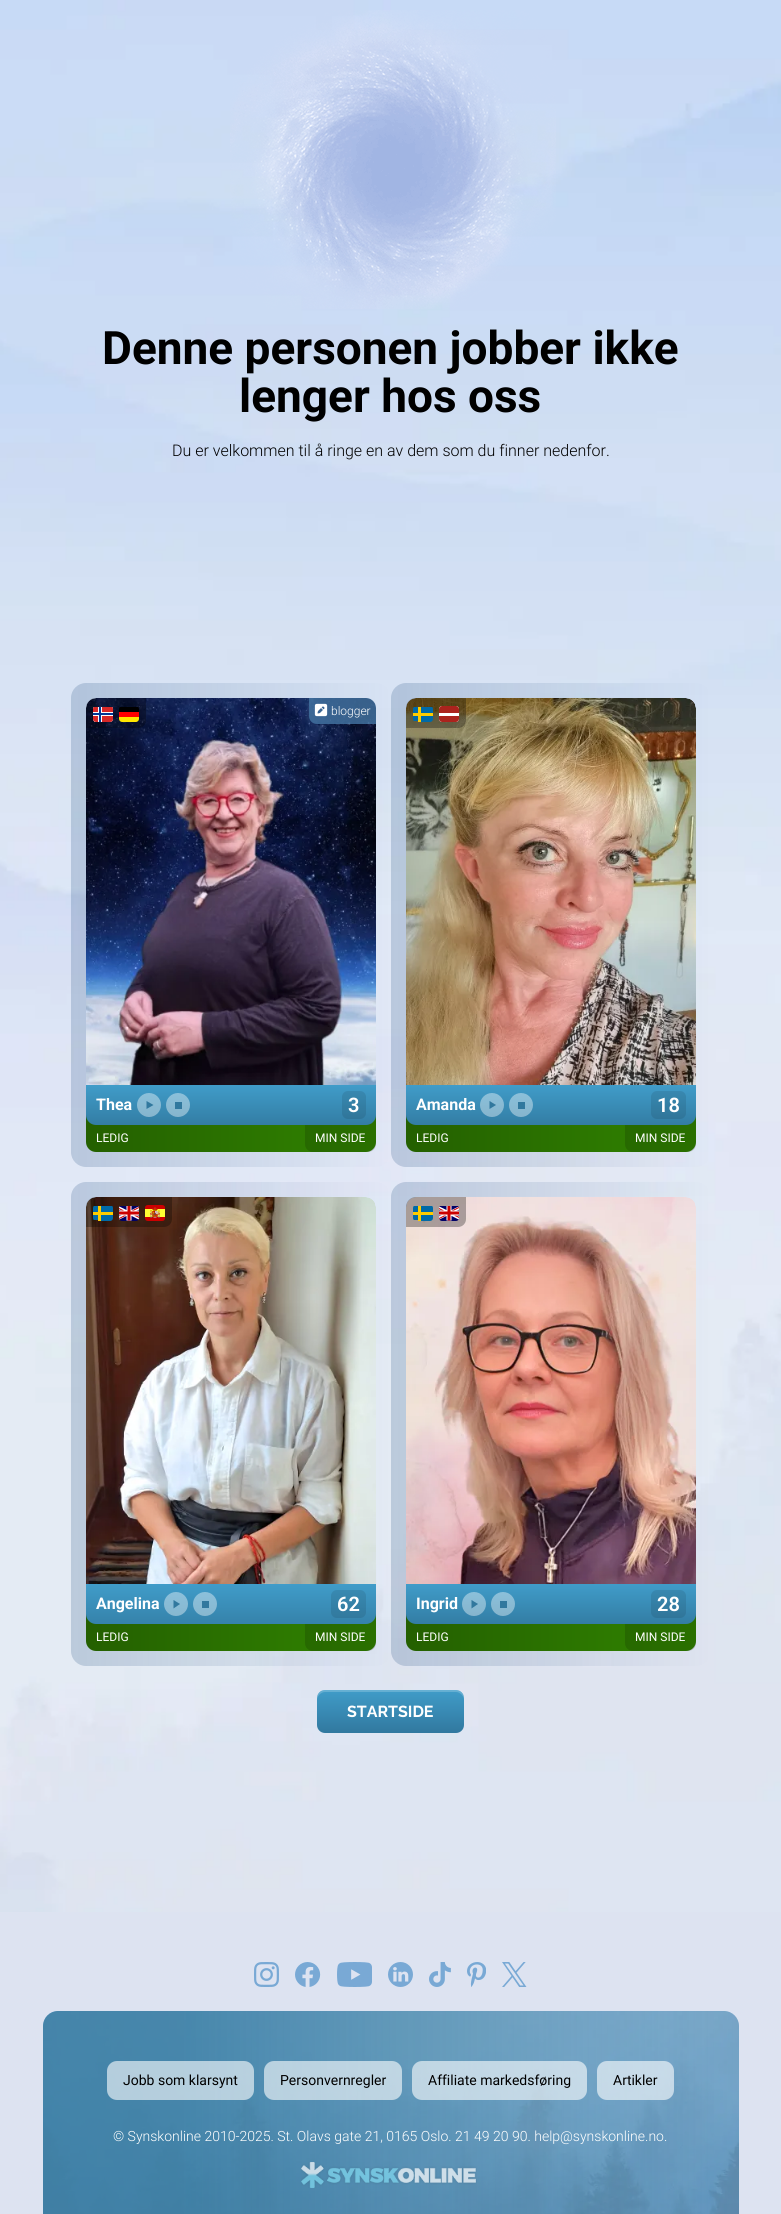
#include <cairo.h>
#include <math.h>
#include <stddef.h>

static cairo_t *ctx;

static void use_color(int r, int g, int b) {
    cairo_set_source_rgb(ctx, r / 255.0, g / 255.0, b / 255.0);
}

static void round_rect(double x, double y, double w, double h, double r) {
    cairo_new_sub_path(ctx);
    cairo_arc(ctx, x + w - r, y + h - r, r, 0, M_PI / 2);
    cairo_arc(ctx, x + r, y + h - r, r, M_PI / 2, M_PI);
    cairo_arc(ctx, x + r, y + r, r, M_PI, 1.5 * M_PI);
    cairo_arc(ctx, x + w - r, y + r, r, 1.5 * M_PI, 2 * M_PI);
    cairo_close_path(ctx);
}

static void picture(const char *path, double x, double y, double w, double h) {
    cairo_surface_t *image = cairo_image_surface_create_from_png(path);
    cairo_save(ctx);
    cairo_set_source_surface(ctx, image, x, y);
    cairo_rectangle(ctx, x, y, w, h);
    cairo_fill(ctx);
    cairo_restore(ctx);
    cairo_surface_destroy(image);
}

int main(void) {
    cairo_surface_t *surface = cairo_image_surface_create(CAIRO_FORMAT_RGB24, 781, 2214);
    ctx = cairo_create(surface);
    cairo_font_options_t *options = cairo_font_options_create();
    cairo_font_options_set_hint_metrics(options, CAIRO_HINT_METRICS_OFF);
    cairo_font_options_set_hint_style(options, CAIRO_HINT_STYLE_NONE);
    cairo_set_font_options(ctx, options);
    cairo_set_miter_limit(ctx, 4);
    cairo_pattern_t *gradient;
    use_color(221, 227, 241);
    cairo_paint(ctx);
    picture("img1.png", 0, 0, 781, 1912);
    picture("img2.png", 230, 10, 326, 299);
    cairo_select_font_face(ctx, "Roboto", CAIRO_FONT_SLANT_NORMAL, CAIRO_FONT_WEIGHT_BOLD);
    cairo_set_font_size(ctx, 46);
    use_color(0, 0, 0);
    cairo_move_to(ctx, 102, 364);
    cairo_show_text(ctx, "Denne personen jobber ikke");
    cairo_move_to(ctx, 239, 412);
    cairo_show_text(ctx, "lenger hos oss");
    cairo_select_font_face(ctx, "Roboto Light", CAIRO_FONT_SLANT_NORMAL, CAIRO_FONT_WEIGHT_NORMAL);
    cairo_set_font_size(ctx, 16);
    cairo_move_to(ctx, 172, 456);
    cairo_show_text(ctx, "Du er velkommen til å ringe en av dem som du finner nedenfor.");
    picture("img3.png", 86, 698, 290, 387);
    cairo_set_source_rgba(ctx, 0, 0, 0, 0.3);
    cairo_new_path(ctx);
    cairo_move_to(ctx, 96, 698);
    cairo_line_to(ctx, 146, 698);
    cairo_line_to(ctx, 146, 720);
    cairo_curve_to(ctx, 146, 724.5, 142.5, 728, 138, 728);
    cairo_line_to(ctx, 86, 728);
    cairo_line_to(ctx, 86, 708);
    cairo_curve_to(ctx, 86, 702.5, 90.5, 698, 96, 698);
    cairo_close_path(ctx);
    cairo_fill(ctx);
    picture("img4.png", 93, 707, 20, 15);
    use_color(255, 230, 0);
    cairo_new_path(ctx);
    cairo_move_to(ctx, 119, 717);
    cairo_line_to(ctx, 139, 717);
    cairo_line_to(ctx, 139, 719);
    cairo_curve_to(ctx, 139, 720.5, 137.5, 722, 136, 722);
    cairo_line_to(ctx, 122, 722);
    cairo_curve_to(ctx, 120.5, 722, 119, 720.5, 119, 719);
    cairo_close_path(ctx);
    cairo_fill(ctx);
    cairo_save(ctx);
    round_rect(119, 706, 20, 16, 3);
    cairo_clip(ctx);
    use_color(0, 0, 0);
    cairo_rectangle(ctx, 119, 707, 20, 5);
    cairo_fill(ctx);
    cairo_restore(ctx);
    use_color(255, 0, 0);
    cairo_rectangle(ctx, 119, 712, 20, 5);
    cairo_fill(ctx);
    cairo_set_source_rgba(ctx, 0.255, 0.439, 0.616, 0.85);
    cairo_new_path(ctx);
    cairo_move_to(ctx, 309, 698);
    cairo_line_to(ctx, 366, 698);
    cairo_curve_to(ctx, 371.5, 698, 376, 702.5, 376, 708);
    cairo_line_to(ctx, 376, 724);
    cairo_line_to(ctx, 317, 724);
    cairo_curve_to(ctx, 312.5, 724, 309, 720.5, 309, 716);
    cairo_close_path(ctx);
    cairo_fill(ctx);
    picture("img5.png", 314, 703, 14, 14);
    cairo_set_font_size(ctx, 12);
    use_color(255, 255, 255);
    cairo_move_to(ctx, 331, 715);
    cairo_show_text(ctx, "blogger");
    gradient = cairo_pattern_create_linear(86, 1134, 376, 1134);
    cairo_pattern_add_color_stop_rgba(gradient, 0.01, 0.141, 0.376, 0, 1);
    cairo_pattern_add_color_stop_rgba(gradient, 1, 0.192, 0.518, 0, 1);
    cairo_set_source(ctx, gradient);
    cairo_pattern_destroy(gradient);
    cairo_new_path(ctx);
    cairo_move_to(ctx, 86, 1115);
    cairo_line_to(ctx, 376, 1115);
    cairo_line_to(ctx, 376, 1142);
    cairo_curve_to(ctx, 376, 1147.5, 371.5, 1152, 366, 1152);
    cairo_line_to(ctx, 96, 1152);
    cairo_curve_to(ctx, 90.5, 1152, 86, 1147.5, 86, 1142);
    cairo_close_path(ctx);
    cairo_fill(ctx);
    cairo_set_source_rgba(ctx, 0, 0, 0, 0.15);
    cairo_new_path(ctx);
    cairo_move_to(ctx, 313, 1115);
    cairo_line_to(ctx, 376, 1115);
    cairo_line_to(ctx, 376, 1144);
    cairo_curve_to(ctx, 376, 1148.5, 372.5, 1152, 368, 1152);
    cairo_line_to(ctx, 313, 1152);
    cairo_curve_to(ctx, 308.5, 1152, 305, 1148.5, 305, 1144);
    cairo_line_to(ctx, 305, 1123);
    cairo_curve_to(ctx, 305, 1118.5, 308.5, 1115, 313, 1115);
    cairo_close_path(ctx);
    cairo_fill(ctx);
    gradient = cairo_pattern_create_linear(231, 1085, 231, 1176);
    cairo_pattern_add_color_stop_rgba(gradient, 0, 0.251, 0.612, 0.788, 1);
    cairo_pattern_add_color_stop_rgba(gradient, 0.51, 0.192, 0.471, 0.62, 1);
    cairo_set_source(ctx, gradient);
    cairo_pattern_destroy(gradient);
    cairo_new_path(ctx);
    cairo_move_to(ctx, 86, 1085);
    cairo_line_to(ctx, 376, 1085);
    cairo_line_to(ctx, 376, 1115);
    cairo_curve_to(ctx, 376, 1120.5, 371.5, 1125, 366, 1125);
    cairo_line_to(ctx, 96, 1125);
    cairo_curve_to(ctx, 90.5, 1125, 86, 1120.5, 86, 1115);
    cairo_close_path(ctx);
    cairo_fill(ctx);
    cairo_select_font_face(ctx, "Roboto", CAIRO_FONT_SLANT_NORMAL, CAIRO_FONT_WEIGHT_BOLD);
    cairo_set_font_size(ctx, 16);
    use_color(255, 255, 255);
    cairo_move_to(ctx, 96, 1110);
    cairo_show_text(ctx, "Thea");
    cairo_set_source_rgba(ctx, 1, 1, 1, 0.4);
    cairo_new_path(ctx);
    cairo_arc(ctx, 149, 1105, 12, 0, 2 * M_PI);
    cairo_fill(ctx);
    use_color(49, 120, 158);
    cairo_new_path(ctx);
    cairo_move_to(ctx, 146.5, 1101);
    cairo_line_to(ctx, 146.5, 1109);
    cairo_line_to(ctx, 153.5, 1105);
    cairo_close_path(ctx);
    cairo_fill(ctx);
    cairo_set_source_rgba(ctx, 1, 1, 1, 0.4);
    cairo_arc(ctx, 178, 1105, 12, 0, 2 * M_PI);
    cairo_fill(ctx);
    use_color(49, 120, 158);
    cairo_rectangle(ctx, 175, 1102, 7, 7);
    cairo_fill(ctx);
    cairo_set_source_rgba(ctx, 0, 0, 0, 0.1);
    round_rect(342, 1091, 24, 28, 6);
    cairo_fill(ctx);
    cairo_select_font_face(ctx, "Roboto SemiBold", CAIRO_FONT_SLANT_NORMAL, CAIRO_FONT_WEIGHT_NORMAL);
    cairo_set_font_size(ctx, 20);
    use_color(255, 255, 255);
    cairo_move_to(ctx, 348, 1112);
    cairo_show_text(ctx, "3");
    cairo_select_font_face(ctx, "Roboto", CAIRO_FONT_SLANT_NORMAL, CAIRO_FONT_WEIGHT_NORMAL);
    cairo_set_font_size(ctx, 12);
    cairo_move_to(ctx, 96, 1142);
    cairo_show_text(ctx, "LEDIG");
    cairo_move_to(ctx, 315, 1142);
    cairo_show_text(ctx, "MIN SIDE");
    picture("img6.png", 406, 698, 290, 387);
    cairo_set_source_rgba(ctx, 0, 0, 0, 0.3);
    cairo_new_path(ctx);
    cairo_move_to(ctx, 416, 698);
    cairo_line_to(ctx, 466, 698);
    cairo_line_to(ctx, 466, 720);
    cairo_curve_to(ctx, 466, 724.5, 462.5, 728, 458, 728);
    cairo_line_to(ctx, 406, 728);
    cairo_line_to(ctx, 406, 708);
    cairo_curve_to(ctx, 406, 702.5, 410.5, 698, 416, 698);
    cairo_close_path(ctx);
    cairo_fill(ctx);
    picture("img7.png", 413, 707, 20, 15);
    use_color(255, 255, 255);
    round_rect(439, 706, 20, 16, 3);
    cairo_fill(ctx);
    use_color(171, 35, 29);
    cairo_new_path(ctx);
    cairo_move_to(ctx, 442, 706);
    cairo_line_to(ctx, 456, 706);
    cairo_curve_to(ctx, 457.5, 706, 459, 707.5, 459, 709);
    cairo_line_to(ctx, 459, 713);
    cairo_line_to(ctx, 439, 713);
    cairo_line_to(ctx, 439, 709);
    cairo_curve_to(ctx, 439, 707.5, 440.5, 706, 442, 706);
    cairo_close_path(ctx);
    cairo_fill(ctx);
    cairo_new_path(ctx);
    cairo_move_to(ctx, 439, 716);
    cairo_line_to(ctx, 459, 716);
    cairo_line_to(ctx, 459, 719);
    cairo_curve_to(ctx, 459, 720.5, 457.5, 722, 456, 722);
    cairo_line_to(ctx, 442, 722);
    cairo_curve_to(ctx, 440.5, 722, 439, 720.5, 439, 719);
    cairo_close_path(ctx);
    cairo_fill(ctx);
    gradient = cairo_pattern_create_linear(406, 1134, 696, 1134);
    cairo_pattern_add_color_stop_rgba(gradient, 0.01, 0.141, 0.376, 0, 1);
    cairo_pattern_add_color_stop_rgba(gradient, 1, 0.192, 0.518, 0, 1);
    cairo_set_source(ctx, gradient);
    cairo_pattern_destroy(gradient);
    cairo_new_path(ctx);
    cairo_move_to(ctx, 406, 1115);
    cairo_line_to(ctx, 696, 1115);
    cairo_line_to(ctx, 696, 1142);
    cairo_curve_to(ctx, 696, 1147.5, 691.5, 1152, 686, 1152);
    cairo_line_to(ctx, 416, 1152);
    cairo_curve_to(ctx, 410.5, 1152, 406, 1147.5, 406, 1142);
    cairo_close_path(ctx);
    cairo_fill(ctx);
    cairo_set_source_rgba(ctx, 0, 0, 0, 0.15);
    cairo_new_path(ctx);
    cairo_move_to(ctx, 633, 1115);
    cairo_line_to(ctx, 696, 1115);
    cairo_line_to(ctx, 696, 1144);
    cairo_curve_to(ctx, 696, 1148.5, 692.5, 1152, 688, 1152);
    cairo_line_to(ctx, 633, 1152);
    cairo_curve_to(ctx, 628.5, 1152, 625, 1148.5, 625, 1144);
    cairo_line_to(ctx, 625, 1123);
    cairo_curve_to(ctx, 625, 1118.5, 628.5, 1115, 633, 1115);
    cairo_close_path(ctx);
    cairo_fill(ctx);
    gradient = cairo_pattern_create_linear(551, 1085, 551, 1176);
    cairo_pattern_add_color_stop_rgba(gradient, 0, 0.251, 0.612, 0.788, 1);
    cairo_pattern_add_color_stop_rgba(gradient, 0.51, 0.192, 0.471, 0.62, 1);
    cairo_set_source(ctx, gradient);
    cairo_pattern_destroy(gradient);
    cairo_new_path(ctx);
    cairo_move_to(ctx, 406, 1085);
    cairo_line_to(ctx, 696, 1085);
    cairo_line_to(ctx, 696, 1115);
    cairo_curve_to(ctx, 696, 1120.5, 691.5, 1125, 686, 1125);
    cairo_line_to(ctx, 416, 1125);
    cairo_curve_to(ctx, 410.5, 1125, 406, 1120.5, 406, 1115);
    cairo_close_path(ctx);
    cairo_fill(ctx);
    cairo_select_font_face(ctx, "Roboto", CAIRO_FONT_SLANT_NORMAL, CAIRO_FONT_WEIGHT_BOLD);
    cairo_set_font_size(ctx, 16);
    use_color(255, 255, 255);
    cairo_move_to(ctx, 416, 1110);
    cairo_show_text(ctx, "Amanda");
    cairo_set_source_rgba(ctx, 1, 1, 1, 0.4);
    cairo_new_path(ctx);
    cairo_arc(ctx, 492, 1105, 12, 0, 2 * M_PI);
    cairo_fill(ctx);
    use_color(49, 120, 158);
    cairo_new_path(ctx);
    cairo_move_to(ctx, 489.5, 1101);
    cairo_line_to(ctx, 489.5, 1109);
    cairo_line_to(ctx, 496, 1105);
    cairo_close_path(ctx);
    cairo_fill(ctx);
    cairo_set_source_rgba(ctx, 1, 1, 1, 0.4);
    cairo_arc(ctx, 521, 1105, 12, 0, 2 * M_PI);
    cairo_fill(ctx);
    use_color(49, 120, 158);
    cairo_rectangle(ctx, 518, 1102, 7, 7);
    cairo_fill(ctx);
    cairo_set_source_rgba(ctx, 0, 0, 0, 0.1);
    round_rect(651, 1091, 35, 28, 6);
    cairo_fill(ctx);
    cairo_select_font_face(ctx, "Roboto SemiBold", CAIRO_FONT_SLANT_NORMAL, CAIRO_FONT_WEIGHT_NORMAL);
    cairo_set_font_size(ctx, 20);
    use_color(255, 255, 255);
    cairo_move_to(ctx, 657, 1112);
    cairo_show_text(ctx, "18");
    cairo_select_font_face(ctx, "Roboto", CAIRO_FONT_SLANT_NORMAL, CAIRO_FONT_WEIGHT_NORMAL);
    cairo_set_font_size(ctx, 12);
    cairo_move_to(ctx, 416, 1142);
    cairo_show_text(ctx, "LEDIG");
    cairo_move_to(ctx, 635, 1142);
    cairo_show_text(ctx, "MIN SIDE");
    picture("img8.png", 86, 1197, 290, 387);
    cairo_set_source_rgba(ctx, 0, 0, 0, 0.3);
    cairo_new_path(ctx);
    cairo_move_to(ctx, 96, 1197);
    cairo_line_to(ctx, 172, 1197);
    cairo_line_to(ctx, 172, 1219);
    cairo_curve_to(ctx, 172, 1223.5, 168.5, 1227, 164, 1227);
    cairo_line_to(ctx, 86, 1227);
    cairo_line_to(ctx, 86, 1207);
    cairo_curve_to(ctx, 86, 1201.5, 90.5, 1197, 96, 1197);
    cairo_close_path(ctx);
    cairo_fill(ctx);
    picture("img9.png", 93, 1206, 20, 15);
    picture("img10.png", 119, 1206, 20, 15);
    picture("img11.png", 145, 1205, 20, 16);
    gradient = cairo_pattern_create_linear(86, 1633, 376, 1633);
    cairo_pattern_add_color_stop_rgba(gradient, 0.01, 0.141, 0.376, 0, 1);
    cairo_pattern_add_color_stop_rgba(gradient, 1, 0.192, 0.518, 0, 1);
    cairo_set_source(ctx, gradient);
    cairo_pattern_destroy(gradient);
    cairo_new_path(ctx);
    cairo_move_to(ctx, 86, 1614);
    cairo_line_to(ctx, 376, 1614);
    cairo_line_to(ctx, 376, 1641);
    cairo_curve_to(ctx, 376, 1646.5, 371.5, 1651, 366, 1651);
    cairo_line_to(ctx, 96, 1651);
    cairo_curve_to(ctx, 90.5, 1651, 86, 1646.5, 86, 1641);
    cairo_close_path(ctx);
    cairo_fill(ctx);
    cairo_set_source_rgba(ctx, 0, 0, 0, 0.15);
    cairo_new_path(ctx);
    cairo_move_to(ctx, 313, 1614);
    cairo_line_to(ctx, 376, 1614);
    cairo_line_to(ctx, 376, 1643);
    cairo_curve_to(ctx, 376, 1647.5, 372.5, 1651, 368, 1651);
    cairo_line_to(ctx, 313, 1651);
    cairo_curve_to(ctx, 308.5, 1651, 305, 1647.5, 305, 1643);
    cairo_line_to(ctx, 305, 1622);
    cairo_curve_to(ctx, 305, 1617.5, 308.5, 1614, 313, 1614);
    cairo_close_path(ctx);
    cairo_fill(ctx);
    gradient = cairo_pattern_create_linear(231, 1584, 231, 1693);
    cairo_pattern_add_color_stop_rgba(gradient, 0, 0.251, 0.612, 0.788, 1);
    cairo_pattern_add_color_stop_rgba(gradient, 0.51, 0.192, 0.471, 0.62, 1);
    cairo_set_source(ctx, gradient);
    cairo_pattern_destroy(gradient);
    cairo_new_path(ctx);
    cairo_move_to(ctx, 86, 1584);
    cairo_line_to(ctx, 376, 1584);
    cairo_line_to(ctx, 376, 1614);
    cairo_curve_to(ctx, 376, 1619.5, 371.5, 1624, 366, 1624);
    cairo_line_to(ctx, 96, 1624);
    cairo_curve_to(ctx, 90.5, 1624, 86, 1619.5, 86, 1614);
    cairo_close_path(ctx);
    cairo_fill(ctx);
    cairo_select_font_face(ctx, "Roboto", CAIRO_FONT_SLANT_NORMAL, CAIRO_FONT_WEIGHT_BOLD);
    cairo_set_font_size(ctx, 16);
    use_color(255, 255, 255);
    cairo_move_to(ctx, 96, 1609);
    cairo_show_text(ctx, "Angelina");
    cairo_set_source_rgba(ctx, 1, 1, 1, 0.4);
    cairo_new_path(ctx);
    cairo_arc(ctx, 176, 1604, 12, 0, 2 * M_PI);
    cairo_fill(ctx);
    use_color(49, 120, 158);
    cairo_new_path(ctx);
    cairo_move_to(ctx, 173.5, 1600);
    cairo_line_to(ctx, 173.5, 1608.5);
    cairo_line_to(ctx, 180, 1604);
    cairo_close_path(ctx);
    cairo_fill(ctx);
    cairo_set_source_rgba(ctx, 1, 1, 1, 0.4);
    cairo_arc(ctx, 205, 1604, 12, 0, 2 * M_PI);
    cairo_fill(ctx);
    use_color(49, 120, 158);
    cairo_rectangle(ctx, 202, 1601, 7, 7);
    cairo_fill(ctx);
    cairo_set_source_rgba(ctx, 0, 0, 0, 0.1);
    round_rect(331, 1590, 35, 28, 6);
    cairo_fill(ctx);
    cairo_select_font_face(ctx, "Roboto SemiBold", CAIRO_FONT_SLANT_NORMAL, CAIRO_FONT_WEIGHT_NORMAL);
    cairo_set_font_size(ctx, 20);
    use_color(255, 255, 255);
    cairo_move_to(ctx, 337, 1611);
    cairo_show_text(ctx, "62");
    cairo_select_font_face(ctx, "Roboto", CAIRO_FONT_SLANT_NORMAL, CAIRO_FONT_WEIGHT_NORMAL);
    cairo_set_font_size(ctx, 12);
    cairo_move_to(ctx, 96, 1641);
    cairo_show_text(ctx, "LEDIG");
    cairo_move_to(ctx, 315, 1641);
    cairo_show_text(ctx, "MIN SIDE");
    picture("img12.png", 406, 1197, 290, 387);
    cairo_set_source_rgba(ctx, 0, 0, 0, 0.3);
    cairo_new_path(ctx);
    cairo_move_to(ctx, 416, 1197);
    cairo_line_to(ctx, 466, 1197);
    cairo_line_to(ctx, 466, 1219);
    cairo_curve_to(ctx, 466, 1223.5, 462.5, 1227, 458, 1227);
    cairo_line_to(ctx, 406, 1227);
    cairo_line_to(ctx, 406, 1207);
    cairo_curve_to(ctx, 406, 1201.5, 410.5, 1197, 416, 1197);
    cairo_close_path(ctx);
    cairo_fill(ctx);
    picture("img13.png", 413, 1206, 20, 15);
    picture("img14.png", 439, 1206, 20, 15);
    gradient = cairo_pattern_create_linear(406, 1633, 696, 1633);
    cairo_pattern_add_color_stop_rgba(gradient, 0.01, 0.141, 0.376, 0, 1);
    cairo_pattern_add_color_stop_rgba(gradient, 1, 0.192, 0.518, 0, 1);
    cairo_set_source(ctx, gradient);
    cairo_pattern_destroy(gradient);
    cairo_new_path(ctx);
    cairo_move_to(ctx, 406, 1614);
    cairo_line_to(ctx, 696, 1614);
    cairo_line_to(ctx, 696, 1641);
    cairo_curve_to(ctx, 696, 1646.5, 691.5, 1651, 686, 1651);
    cairo_line_to(ctx, 416, 1651);
    cairo_curve_to(ctx, 410.5, 1651, 406, 1646.5, 406, 1641);
    cairo_close_path(ctx);
    cairo_fill(ctx);
    cairo_set_source_rgba(ctx, 0, 0, 0, 0.15);
    cairo_new_path(ctx);
    cairo_move_to(ctx, 633, 1614);
    cairo_line_to(ctx, 696, 1614);
    cairo_line_to(ctx, 696, 1643);
    cairo_curve_to(ctx, 696, 1647.5, 692.5, 1651, 688, 1651);
    cairo_line_to(ctx, 633, 1651);
    cairo_curve_to(ctx, 628.5, 1651, 625, 1647.5, 625, 1643);
    cairo_line_to(ctx, 625, 1622);
    cairo_curve_to(ctx, 625, 1617.5, 628.5, 1614, 633, 1614);
    cairo_close_path(ctx);
    cairo_fill(ctx);
    gradient = cairo_pattern_create_linear(551, 1584, 551, 1675);
    cairo_pattern_add_color_stop_rgba(gradient, 0, 0.251, 0.612, 0.788, 1);
    cairo_pattern_add_color_stop_rgba(gradient, 0.51, 0.192, 0.471, 0.62, 1);
    cairo_set_source(ctx, gradient);
    cairo_pattern_destroy(gradient);
    cairo_new_path(ctx);
    cairo_move_to(ctx, 406, 1584);
    cairo_line_to(ctx, 696, 1584);
    cairo_line_to(ctx, 696, 1614);
    cairo_curve_to(ctx, 696, 1619.5, 691.5, 1624, 686, 1624);
    cairo_line_to(ctx, 416, 1624);
    cairo_curve_to(ctx, 410.5, 1624, 406, 1619.5, 406, 1614);
    cairo_close_path(ctx);
    cairo_fill(ctx);
    cairo_select_font_face(ctx, "Roboto", CAIRO_FONT_SLANT_NORMAL, CAIRO_FONT_WEIGHT_BOLD);
    cairo_set_font_size(ctx, 16);
    use_color(255, 255, 255);
    cairo_move_to(ctx, 416, 1609);
    cairo_show_text(ctx, "Ingrid");
    cairo_set_source_rgba(ctx, 1, 1, 1, 0.4);
    cairo_new_path(ctx);
    cairo_arc(ctx, 474, 1604, 12, 0, 2 * M_PI);
    cairo_fill(ctx);
    use_color(49, 120, 158);
    cairo_new_path(ctx);
    cairo_move_to(ctx, 471.5, 1600);
    cairo_line_to(ctx, 471.5, 1608.5);
    cairo_line_to(ctx, 478, 1604);
    cairo_close_path(ctx);
    cairo_fill(ctx);
    cairo_set_source_rgba(ctx, 1, 1, 1, 0.4);
    cairo_arc(ctx, 503, 1604, 12, 0, 2 * M_PI);
    cairo_fill(ctx);
    use_color(49, 120, 158);
    cairo_rectangle(ctx, 500, 1601, 7, 7);
    cairo_fill(ctx);
    cairo_set_source_rgba(ctx, 0, 0, 0, 0.1);
    round_rect(651, 1590, 35, 28, 6);
    cairo_fill(ctx);
    cairo_select_font_face(ctx, "Roboto SemiBold", CAIRO_FONT_SLANT_NORMAL, CAIRO_FONT_WEIGHT_NORMAL);
    cairo_set_font_size(ctx, 20);
    use_color(255, 255, 255);
    cairo_move_to(ctx, 657, 1611);
    cairo_show_text(ctx, "28");
    cairo_select_font_face(ctx, "Roboto", CAIRO_FONT_SLANT_NORMAL, CAIRO_FONT_WEIGHT_NORMAL);
    cairo_set_font_size(ctx, 12);
    cairo_move_to(ctx, 416, 1641);
    cairo_show_text(ctx, "LEDIG");
    cairo_move_to(ctx, 635, 1641);
    cairo_show_text(ctx, "MIN SIDE");
    gradient = cairo_pattern_create_linear(391, 1690, 391, 1733);
    cairo_pattern_add_color_stop_rgba(gradient, 0, 0.251, 0.612, 0.788, 1);
    cairo_pattern_add_color_stop_rgba(gradient, 1, 0.192, 0.471, 0.62, 1);
    cairo_set_source(ctx, gradient);
    cairo_pattern_destroy(gradient);
    round_rect(317, 1690, 147, 43, 8);
    cairo_fill(ctx);
    cairo_select_font_face(ctx, "Raleway", CAIRO_FONT_SLANT_NORMAL, CAIRO_FONT_WEIGHT_BOLD);
    cairo_set_font_size(ctx, 16);
    use_color(255, 255, 255);
    cairo_move_to(ctx, 347, 1717);
    cairo_show_text(ctx, "STARTSIDE");
    cairo_set_source_rgba(ctx, 1, 1, 1, 0.2);
    cairo_new_path(ctx);
    cairo_move_to(ctx, 325, 1692);
    cairo_line_to(ctx, 456, 1692);
    cairo_curve_to(ctx, 460, 1692, 464, 1696, 464, 1700);
    cairo_line_to(ctx, 464, 1698);
    cairo_curve_to(ctx, 464, 1694, 460, 1690, 456, 1690);
    cairo_line_to(ctx, 325, 1690);
    cairo_curve_to(ctx, 321, 1690, 317, 1694, 317, 1698);
    cairo_line_to(ctx, 317, 1700);
    cairo_curve_to(ctx, 317, 1696, 321, 1692, 325, 1692);
    cairo_close_path(ctx);
    cairo_fill(ctx);
    picture("img15.png", 254, 1962, 25, 25);
    picture("img16.png", 295, 1962, 26, 25);
    picture("img17.png", 337, 1962, 35, 25);
    picture("img18.png", 388, 1962, 25, 25);
    picture("img19.png", 429, 1962, 22, 25);
    picture("img20.png", 467, 1962, 19, 25);
    picture("img21.png", 502, 1962, 25, 25);
    picture("img22.png", 43, 2011, 696, 203);
    gradient = cairo_pattern_create_linear(43, 2125, 739, 2125);
    cairo_pattern_add_color_stop_rgba(gradient, 0.2, 0.192, 0.471, 0.62, 0.85);
    cairo_pattern_add_color_stop_rgba(gradient, 1, 0.192, 0.471, 0.62, 0.5);
    cairo_set_source(ctx, gradient);
    cairo_pattern_destroy(gradient);
    round_rect(43, 2011, 696, 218, 15);
    cairo_fill(ctx);
    cairo_set_source_rgba(ctx, 1, 1, 1, 0.6);
    round_rect(107, 2061, 147, 39, 10);
    cairo_fill(ctx);
    cairo_select_font_face(ctx, "Roboto", CAIRO_FONT_SLANT_NORMAL, CAIRO_FONT_WEIGHT_NORMAL);
    cairo_set_font_size(ctx, 14);
    use_color(0, 0, 0);
    cairo_move_to(ctx, 123, 2085);
    cairo_show_text(ctx, "Jobb som klarsynt");
    cairo_set_source_rgba(ctx, 1, 1, 1, 0.6);
    round_rect(264, 2061, 138, 39, 10);
    cairo_fill(ctx);
    use_color(0, 0, 0);
    cairo_move_to(ctx, 280, 2085);
    cairo_show_text(ctx, "Personvernregler");
    cairo_set_source_rgba(ctx, 1, 1, 1, 0.6);
    round_rect(412, 2061, 175, 39, 10);
    cairo_fill(ctx);
    use_color(0, 0, 0);
    cairo_move_to(ctx, 428, 2085);
    cairo_show_text(ctx, "Affiliate markedsføring");
    cairo_set_source_rgba(ctx, 1, 1, 1, 0.6);
    round_rect(597, 2061, 77, 39, 10);
    cairo_fill(ctx);
    use_color(0, 0, 0);
    cairo_move_to(ctx, 613, 2085);
    cairo_show_text(ctx, "Artikler");
    cairo_select_font_face(ctx, "Roboto Light", CAIRO_FONT_SLANT_NORMAL, CAIRO_FONT_WEIGHT_NORMAL);
    use_color(255, 255, 255);
    cairo_move_to(ctx, 113, 2141);
    cairo_show_text(ctx, "© Synskonline 2010-2025. St. Olavs gate 21, 0165 Oslo. 21 49 20 90. help@synskonline.no.");
    picture("img23.png", 301, 2162, 176, 26);
    cairo_surface_write_to_png(surface, "result.png");
    cairo_font_options_destroy(options);
    cairo_destroy(ctx);
    cairo_surface_destroy(surface);
    return 0;
}
